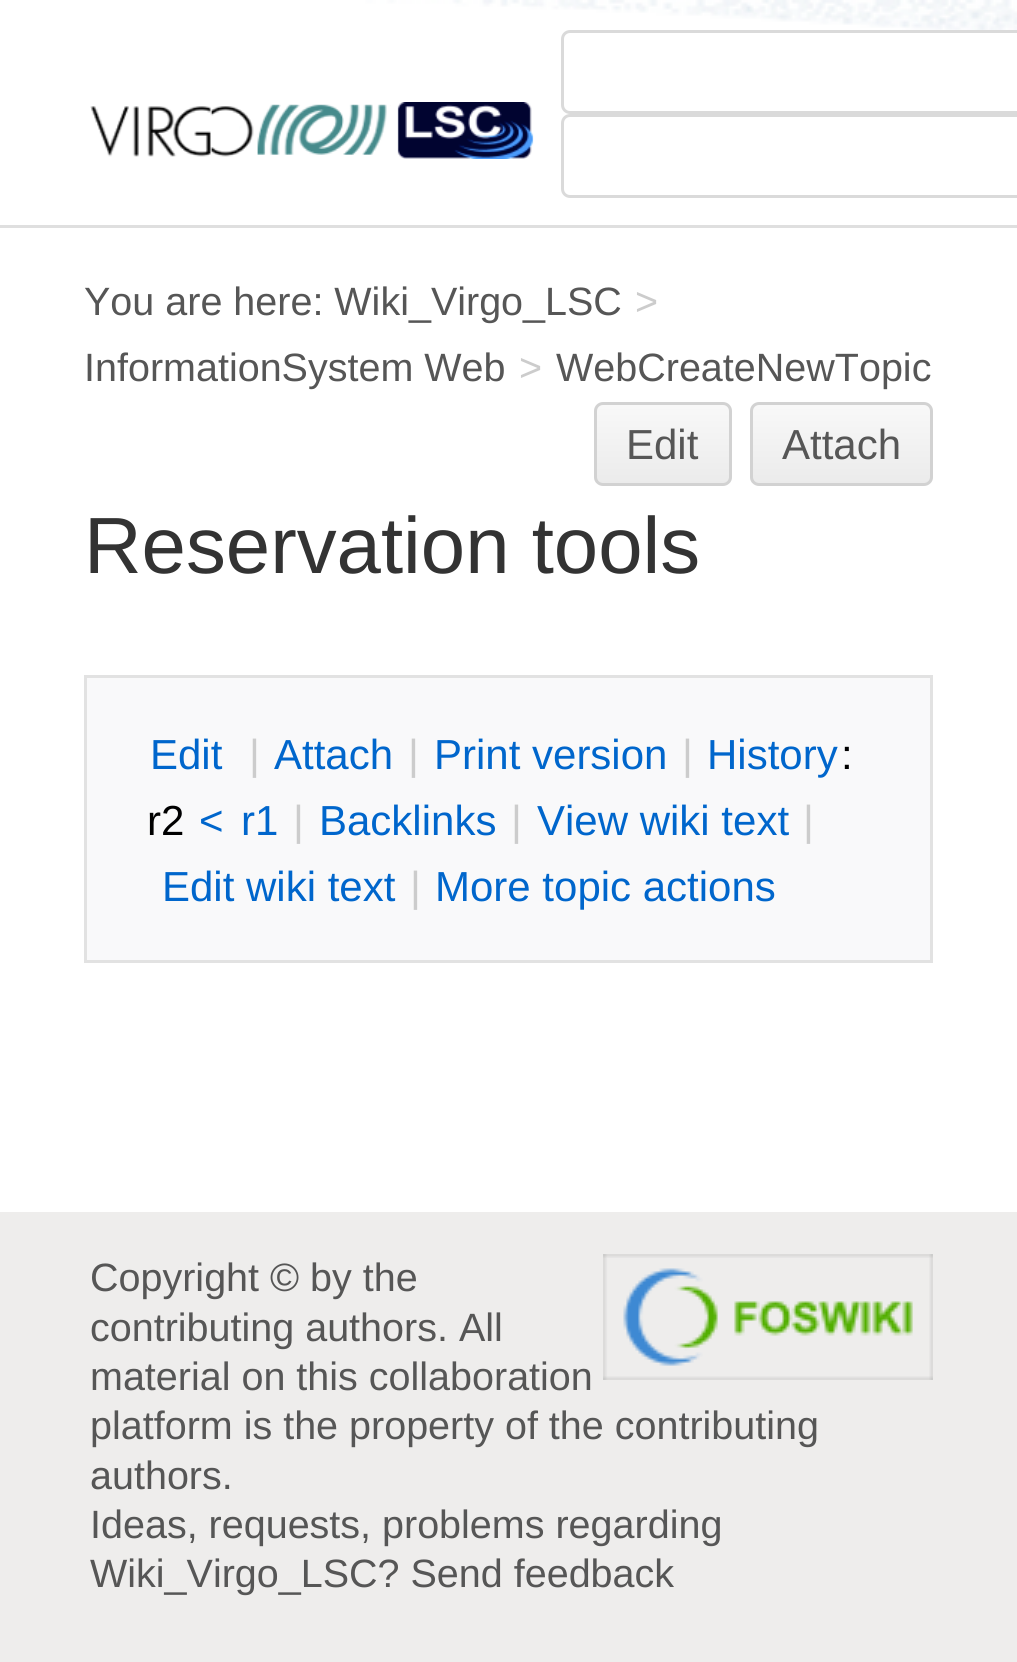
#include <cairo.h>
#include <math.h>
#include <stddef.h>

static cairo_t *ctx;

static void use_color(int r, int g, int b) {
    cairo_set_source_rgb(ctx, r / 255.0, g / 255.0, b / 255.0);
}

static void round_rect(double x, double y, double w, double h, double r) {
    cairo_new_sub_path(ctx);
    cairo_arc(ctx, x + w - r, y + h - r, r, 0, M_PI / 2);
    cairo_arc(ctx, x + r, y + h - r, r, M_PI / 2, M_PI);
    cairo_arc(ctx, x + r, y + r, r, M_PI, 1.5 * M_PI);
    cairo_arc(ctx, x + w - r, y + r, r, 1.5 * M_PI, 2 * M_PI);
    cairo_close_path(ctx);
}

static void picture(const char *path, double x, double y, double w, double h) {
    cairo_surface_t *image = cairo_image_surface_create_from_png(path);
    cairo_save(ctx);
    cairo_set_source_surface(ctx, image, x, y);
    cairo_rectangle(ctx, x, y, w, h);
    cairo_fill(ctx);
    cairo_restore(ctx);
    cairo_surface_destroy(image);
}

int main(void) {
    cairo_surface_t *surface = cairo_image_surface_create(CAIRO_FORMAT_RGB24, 1017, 1662);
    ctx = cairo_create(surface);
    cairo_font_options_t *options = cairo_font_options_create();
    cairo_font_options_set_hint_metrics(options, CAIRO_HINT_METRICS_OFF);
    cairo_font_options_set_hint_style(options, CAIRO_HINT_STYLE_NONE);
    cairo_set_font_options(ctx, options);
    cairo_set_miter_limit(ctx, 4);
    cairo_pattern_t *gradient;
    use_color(223, 223, 223);
    cairo_paint(ctx);
    picture("img1.png", 0, 0, 1017, 225);
    picture("img2.png", 90, 102, 444, 57);
    use_color(255, 255, 255);
    cairo_new_path(ctx);
    cairo_move_to(ctx, 570, 30);
    cairo_line_to(ctx, 1017, 30);
    cairo_line_to(ctx, 1017, 114);
    cairo_line_to(ctx, 570, 114);
    cairo_curve_to(ctx, 565, 114, 561, 110, 561, 105);
    cairo_line_to(ctx, 561, 39);
    cairo_curve_to(ctx, 561, 34, 565, 30, 570, 30);
    cairo_close_path(ctx);
    cairo_fill(ctx);
    round_rect(562.5, 31.5, 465, 81, 7.5);
    use_color(218, 218, 218);
    cairo_set_line_width(ctx, 3);
    cairo_stroke(ctx);
    round_rect(562.5, 115.5, 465, 81, 7.5);
    cairo_stroke(ctx);
    use_color(255, 255, 255);
    cairo_rectangle(ctx, 0, 228, 1017, 984);
    cairo_fill(ctx);
    cairo_select_font_face(ctx, "Liberation Sans", CAIRO_FONT_SLANT_NORMAL, CAIRO_FONT_WEIGHT_NORMAL);
    cairo_set_font_size(ctx, 39.5);
    use_color(86, 86, 86);
    cairo_move_to(ctx, 84, 315);
    cairo_show_text(ctx, "You are here: Wiki_Virgo_LSC");
    use_color(204, 204, 204);
    cairo_move_to(ctx, 635, 315);
    cairo_show_text(ctx, ">");
    use_color(86, 86, 86);
    cairo_move_to(ctx, 84, 381);
    cairo_show_text(ctx, "InformationSystem Web");
    use_color(204, 204, 204);
    cairo_move_to(ctx, 519, 381);
    cairo_show_text(ctx, ">");
    use_color(86, 86, 86);
    cairo_move_to(ctx, 556, 381);
    cairo_show_text(ctx, "WebCreateNewTopic");
    cairo_save(ctx);
    round_rect(594, 402, 138, 84, 9);
    cairo_clip(ctx);
    gradient = cairo_pattern_create_linear(663, 405, 663, 483);
    cairo_pattern_add_color_stop_rgba(gradient, 0, 0.973, 0.973, 0.973, 1);
    cairo_pattern_add_color_stop_rgba(gradient, 1, 0.922, 0.922, 0.922, 1);
    cairo_set_source(ctx, gradient);
    cairo_pattern_destroy(gradient);
    cairo_rectangle(ctx, 594, 405, 138, 78);
    cairo_fill(ctx);
    cairo_restore(ctx);
    round_rect(595.5, 403.5, 135, 81, 7.5);
    use_color(210, 210, 210);
    cairo_stroke(ctx);
    cairo_set_font_size(ctx, 42);
    use_color(86, 86, 86);
    cairo_move_to(ctx, 626, 459);
    cairo_show_text(ctx, "Edit");
    cairo_save(ctx);
    round_rect(750, 402, 183, 84, 9);
    cairo_clip(ctx);
    gradient = cairo_pattern_create_linear(842, 405, 842, 483);
    cairo_pattern_add_color_stop_rgba(gradient, 0, 0.973, 0.973, 0.973, 1);
    cairo_pattern_add_color_stop_rgba(gradient, 1, 0.922, 0.922, 0.922, 1);
    cairo_set_source(ctx, gradient);
    cairo_pattern_destroy(gradient);
    cairo_rectangle(ctx, 750, 405, 183, 78);
    cairo_fill(ctx);
    cairo_restore(ctx);
    round_rect(751.5, 403.5, 180, 81, 7.5);
    use_color(210, 210, 210);
    cairo_stroke(ctx);
    use_color(86, 86, 86);
    cairo_move_to(ctx, 782, 459);
    cairo_show_text(ctx, "Attach");
    cairo_set_font_size(ctx, 79.75);
    use_color(51, 51, 51);
    cairo_move_to(ctx, 84, 573);
    cairo_show_text(ctx, "Reservation tools");
    use_color(249, 249, 250);
    cairo_rectangle(ctx, 85.5, 676.5, 846, 285);
    cairo_fill_preserve(ctx);
    use_color(226, 226, 226);
    cairo_stroke(ctx);
    cairo_set_font_size(ctx, 42);
    use_color(0, 102, 204);
    cairo_move_to(ctx, 150, 769);
    cairo_show_text(ctx, "Edit");
    use_color(204, 204, 204);
    cairo_move_to(ctx, 249, 769);
    cairo_show_text(ctx, "|");
    use_color(0, 102, 204);
    cairo_move_to(ctx, 274, 769);
    cairo_show_text(ctx, "Attach");
    use_color(204, 204, 204);
    cairo_move_to(ctx, 408, 769);
    cairo_show_text(ctx, "|");
    use_color(0, 102, 204);
    cairo_move_to(ctx, 434, 769);
    cairo_show_text(ctx, "Print version");
    use_color(204, 204, 204);
    cairo_move_to(ctx, 682, 769);
    cairo_show_text(ctx, "|");
    use_color(0, 102, 204);
    cairo_move_to(ctx, 707, 769);
    cairo_show_text(ctx, "History");
    use_color(0, 0, 0);
    cairo_move_to(ctx, 841, 769);
    cairo_show_text(ctx, ":");
    cairo_move_to(ctx, 147, 835);
    cairo_show_text(ctx, "r2");
    use_color(0, 102, 204);
    cairo_move_to(ctx, 199, 835);
    cairo_show_text(ctx, "<");
    cairo_move_to(ctx, 241, 835);
    cairo_show_text(ctx, "r1");
    use_color(204, 204, 204);
    cairo_move_to(ctx, 293, 835);
    cairo_show_text(ctx, "|");
    use_color(0, 102, 204);
    cairo_move_to(ctx, 319, 835);
    cairo_show_text(ctx, "Backlinks");
    use_color(204, 204, 204);
    cairo_move_to(ctx, 511, 835);
    cairo_show_text(ctx, "|");
    use_color(0, 102, 204);
    cairo_move_to(ctx, 537, 835);
    cairo_show_text(ctx, "View wiki text");
    use_color(204, 204, 204);
    cairo_move_to(ctx, 803, 835);
    cairo_show_text(ctx, "|");
    use_color(0, 102, 204);
    cairo_move_to(ctx, 162, 901);
    cairo_show_text(ctx, "Edit wiki text");
    use_color(204, 204, 204);
    cairo_move_to(ctx, 410, 901);
    cairo_show_text(ctx, "|");
    use_color(0, 102, 204);
    cairo_move_to(ctx, 435, 901);
    cairo_show_text(ctx, "More topic actions");
    use_color(238, 237, 236);
    cairo_rectangle(ctx, 0, 1212, 1017, 450);
    cairo_fill(ctx);
    cairo_set_font_size(ctx, 39.5);
    use_color(86, 86, 86);
    cairo_move_to(ctx, 90, 1291);
    cairo_show_text(ctx, "Copyright © by the");
    picture("img3.png", 603, 1254, 330, 126);
    cairo_move_to(ctx, 90, 1341);
    cairo_show_text(ctx, "contributing authors. All");
    cairo_move_to(ctx, 90, 1390);
    cairo_show_text(ctx, "material on this collaboration");
    cairo_move_to(ctx, 90, 1439);
    cairo_show_text(ctx, "platform is the property of the contributing");
    cairo_move_to(ctx, 90, 1489);
    cairo_show_text(ctx, "authors.");
    cairo_move_to(ctx, 90, 1538);
    cairo_show_text(ctx, "Ideas, requests, problems regarding");
    cairo_move_to(ctx, 90, 1587);
    cairo_show_text(ctx, "Wiki_Virgo_LSC? Send feedback");
    cairo_surface_write_to_png(surface, "result.png");
    cairo_font_options_destroy(options);
    cairo_destroy(ctx);
    cairo_surface_destroy(surface);
    return 0;
}
